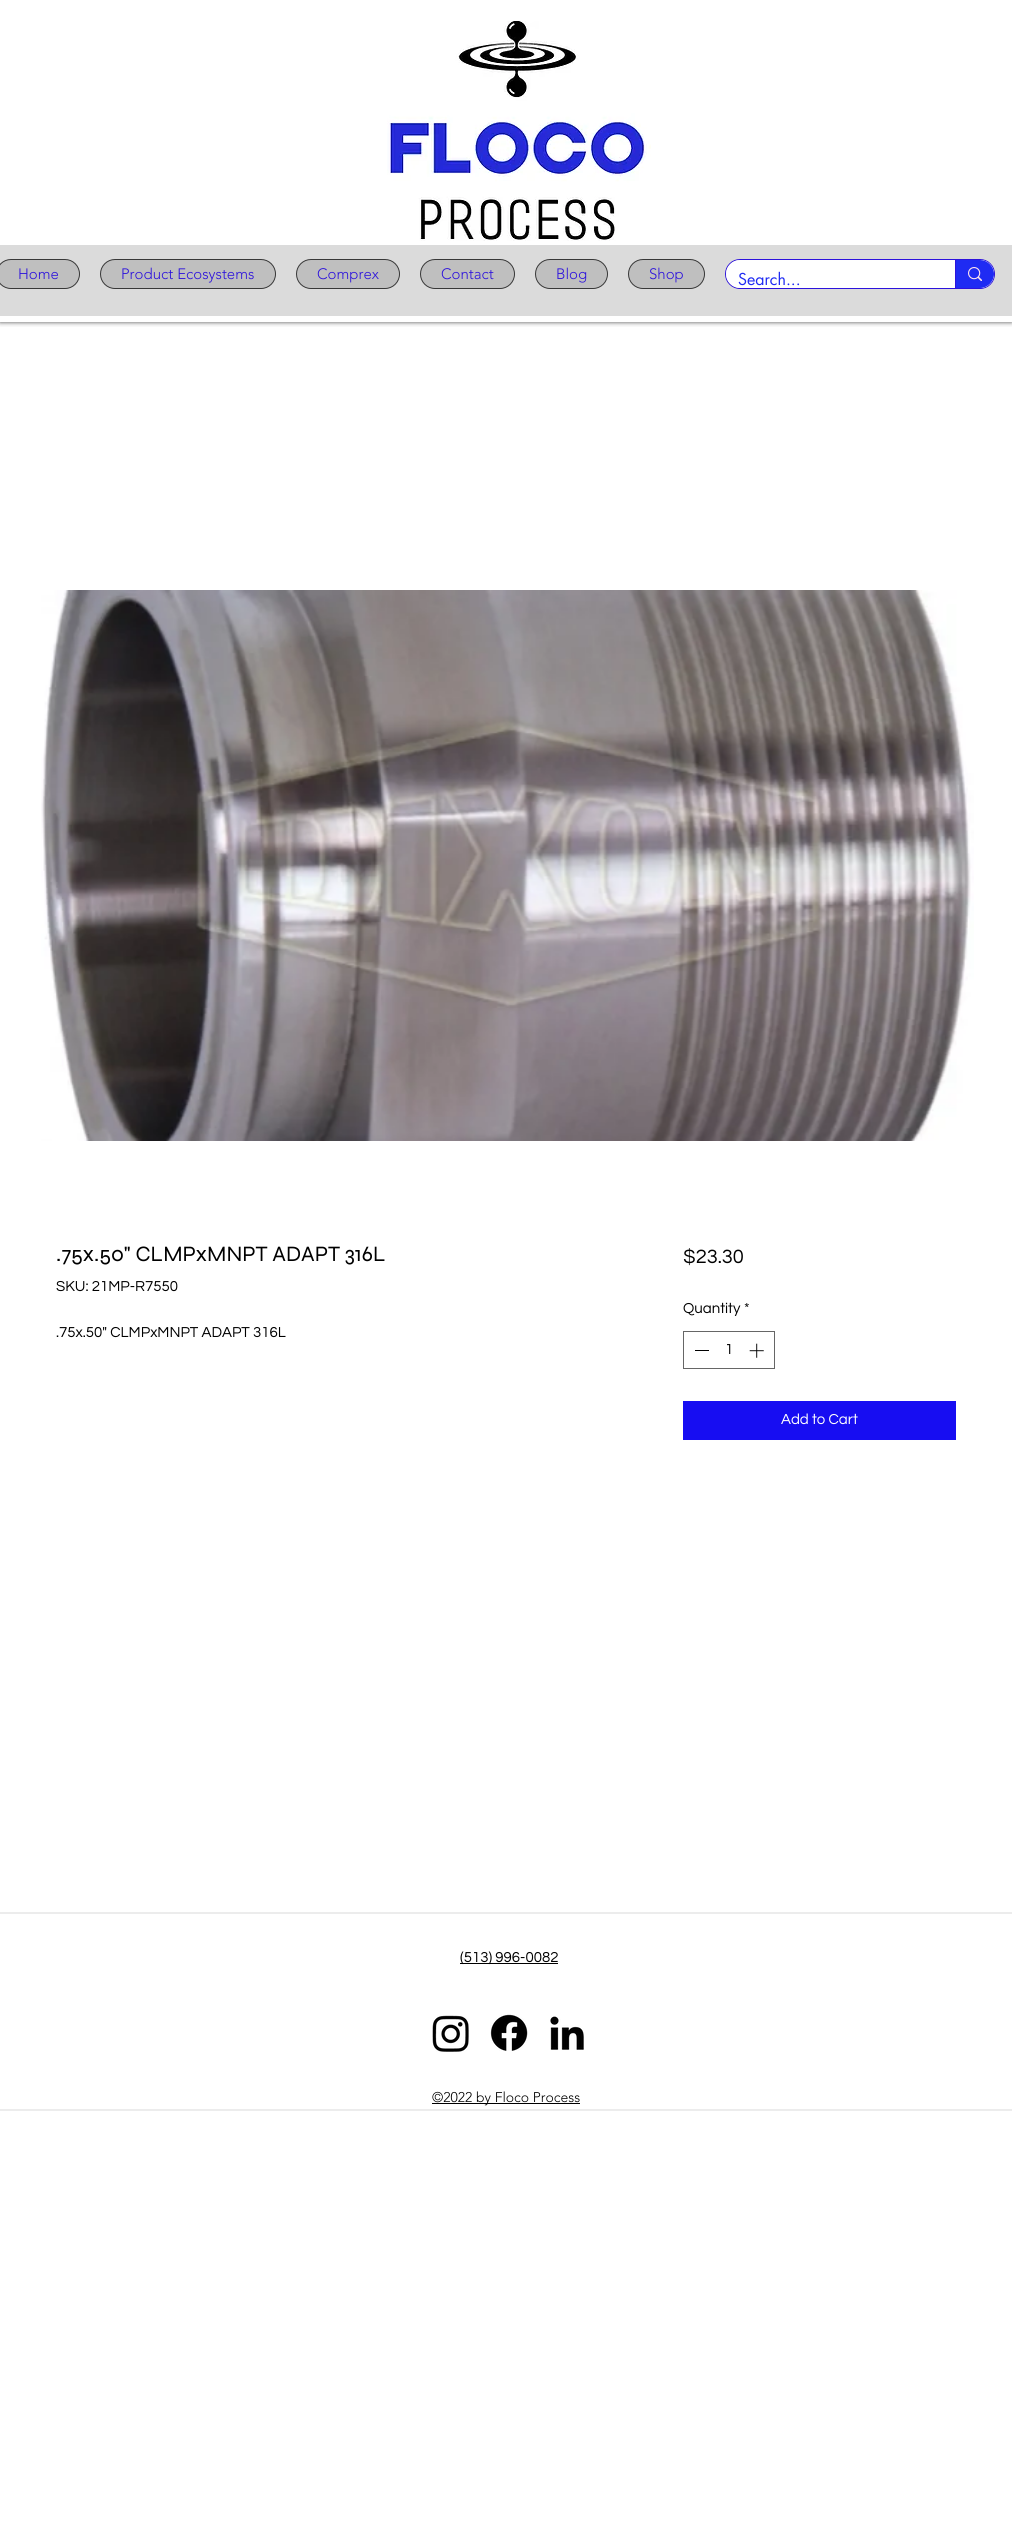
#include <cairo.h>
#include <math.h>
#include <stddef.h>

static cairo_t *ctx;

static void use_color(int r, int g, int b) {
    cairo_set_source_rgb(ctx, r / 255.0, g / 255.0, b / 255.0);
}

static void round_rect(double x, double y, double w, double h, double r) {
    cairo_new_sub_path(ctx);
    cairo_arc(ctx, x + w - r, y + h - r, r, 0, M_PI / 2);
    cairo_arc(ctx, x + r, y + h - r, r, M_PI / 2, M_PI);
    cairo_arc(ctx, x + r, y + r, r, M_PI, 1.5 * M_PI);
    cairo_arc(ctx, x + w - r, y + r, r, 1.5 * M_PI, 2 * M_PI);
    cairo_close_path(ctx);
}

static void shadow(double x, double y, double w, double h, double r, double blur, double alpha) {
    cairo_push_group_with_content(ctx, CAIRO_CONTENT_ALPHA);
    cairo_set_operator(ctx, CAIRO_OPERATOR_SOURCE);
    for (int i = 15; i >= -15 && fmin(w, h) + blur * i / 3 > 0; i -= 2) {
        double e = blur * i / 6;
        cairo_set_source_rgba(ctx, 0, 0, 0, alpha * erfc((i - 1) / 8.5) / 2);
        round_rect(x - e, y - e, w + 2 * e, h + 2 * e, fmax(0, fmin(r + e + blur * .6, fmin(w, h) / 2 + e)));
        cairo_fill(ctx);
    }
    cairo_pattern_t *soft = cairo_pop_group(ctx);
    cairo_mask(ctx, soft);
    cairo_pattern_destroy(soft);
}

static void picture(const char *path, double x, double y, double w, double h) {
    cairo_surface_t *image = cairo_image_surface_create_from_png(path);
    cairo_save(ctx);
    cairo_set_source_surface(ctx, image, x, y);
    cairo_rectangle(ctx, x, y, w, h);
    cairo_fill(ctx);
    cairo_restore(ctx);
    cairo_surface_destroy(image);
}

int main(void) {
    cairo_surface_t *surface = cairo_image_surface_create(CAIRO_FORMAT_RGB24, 1012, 2544);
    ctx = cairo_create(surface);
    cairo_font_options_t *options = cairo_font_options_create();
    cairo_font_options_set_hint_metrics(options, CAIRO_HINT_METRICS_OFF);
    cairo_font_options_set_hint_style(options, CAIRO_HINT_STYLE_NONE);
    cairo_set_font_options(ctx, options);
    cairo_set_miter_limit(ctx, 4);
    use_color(255, 255, 255);
    cairo_paint(ctx);
    cairo_save(ctx);
    cairo_rectangle(ctx, 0, 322, 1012, 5);
    cairo_clip(ctx);
    use_color(0, 0, 0);
    shadow(0, 0, 1012, 322, 0, 2.5, 0.7);
    cairo_restore(ctx);
    picture("img1.png", 387, 21, 264, 220);
    use_color(219, 219, 219);
    cairo_rectangle(ctx, 0, 245, 1012, 71);
    cairo_fill(ctx);
    use_color(191, 191, 191);
    round_rect(-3.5, 259.5, 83, 29, 14.5);
    cairo_fill_preserve(ctx);
    use_color(56, 56, 56);
    cairo_set_line_width(ctx, 1);
    cairo_stroke(ctx);
    cairo_select_font_face(ctx, "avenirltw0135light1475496 Light", CAIRO_FONT_SLANT_NORMAL, CAIRO_FONT_WEIGHT_NORMAL);
    cairo_set_font_size(ctx, 15);
    use_color(45, 19, 220);
    cairo_move_to(ctx, 18, 279);
    cairo_show_text(ctx, "Home");
    use_color(191, 191, 191);
    round_rect(100.5, 259.5, 175, 29, 14.5);
    cairo_fill_preserve(ctx);
    use_color(56, 56, 56);
    cairo_stroke(ctx);
    use_color(45, 19, 220);
    cairo_move_to(ctx, 121, 279);
    cairo_show_text(ctx, "Product Ecosystems");
    use_color(191, 191, 191);
    round_rect(296.5, 259.5, 103, 29, 14.5);
    cairo_fill_preserve(ctx);
    use_color(56, 56, 56);
    cairo_stroke(ctx);
    use_color(45, 19, 220);
    cairo_move_to(ctx, 317, 279);
    cairo_show_text(ctx, "Comprex");
    use_color(191, 191, 191);
    round_rect(420.5, 259.5, 94, 29, 14.5);
    cairo_fill_preserve(ctx);
    use_color(56, 56, 56);
    cairo_stroke(ctx);
    use_color(45, 19, 220);
    cairo_move_to(ctx, 441, 279);
    cairo_show_text(ctx, "Contact");
    use_color(191, 191, 191);
    round_rect(535.5, 259.5, 72, 29, 14.5);
    cairo_fill_preserve(ctx);
    use_color(56, 56, 56);
    cairo_stroke(ctx);
    use_color(45, 19, 220);
    cairo_move_to(ctx, 556, 279);
    cairo_show_text(ctx, "Blog");
    use_color(191, 191, 191);
    round_rect(628.5, 259.5, 76, 29, 14.5);
    cairo_fill_preserve(ctx);
    use_color(56, 56, 56);
    cairo_stroke(ctx);
    use_color(45, 19, 220);
    cairo_move_to(ctx, 649, 279);
    cairo_show_text(ctx, "Shop");
    round_rect(725.5, 259.5, 269, 29, 14.5);
    cairo_stroke(ctx);
    use_color(255, 255, 255);
    round_rect(726, 260, 268, 28, 14);
    cairo_fill(ctx);
    cairo_select_font_face(ctx, "futura", CAIRO_FONT_SLANT_NORMAL, CAIRO_FONT_WEIGHT_NORMAL);
    cairo_set_font_size(ctx, 16);
    use_color(31, 43, 243);
    cairo_move_to(ctx, 738, 285);
    cairo_show_text(ctx, "Search...");
    cairo_new_path(ctx);
    cairo_move_to(ctx, 955, 260);
    cairo_line_to(ctx, 980, 260);
    cairo_curve_to(ctx, 987.5, 260, 994, 266.5, 994, 274);
    cairo_curve_to(ctx, 994, 281.5, 987.5, 288, 980, 288);
    cairo_line_to(ctx, 955, 288);
    cairo_close_path(ctx);
    cairo_fill(ctx);
    use_color(45, 19, 220);
    cairo_rectangle(ctx, 955, 260, 1, 28);
    cairo_fill(ctx);
    picture("img2.png", 968, 267, 14, 14);
    picture("img3.png", 41, 590, 933, 551);
    cairo_select_font_face(ctx, "Syne", CAIRO_FONT_SLANT_NORMAL, CAIRO_FONT_WEIGHT_NORMAL);
    cairo_set_font_size(ctx, 22);
    use_color(0, 0, 0);
    cairo_move_to(ctx, 56, 1261);
    cairo_show_text(ctx, ".75x.50\" CLMPxMNPT ADAPT 316L");
    cairo_select_font_face(ctx, "Questrial", CAIRO_FONT_SLANT_NORMAL, CAIRO_FONT_WEIGHT_NORMAL);
    cairo_set_font_size(ctx, 15);
    cairo_move_to(ctx, 56, 1291);
    cairo_show_text(ctx, "SKU: 21MP-R7550");
    cairo_move_to(ctx, 56, 1337);
    cairo_show_text(ctx, ".75x.50\" CLMPxMNPT ADAPT 316L");
    cairo_set_font_size(ctx, 20);
    cairo_move_to(ctx, 683, 1263);
    cairo_show_text(ctx, "$23.30");
    cairo_set_font_size(ctx, 15);
    cairo_move_to(ctx, 683, 1313);
    cairo_show_text(ctx, "Quantity");
    cairo_move_to(ctx, 744, 1313);
    cairo_show_text(ctx, "*");
    cairo_rectangle(ctx, 683.5, 1331.5, 91, 37);
    use_color(102, 102, 102);
    cairo_stroke(ctx);
    use_color(0, 0, 0);
    cairo_rectangle(ctx, 695, 1350, 14, 1);
    cairo_fill(ctx);
    cairo_move_to(ctx, 725, 1354);
    cairo_show_text(ctx, "1");
    picture("img4.png", 749, 1343, 15, 15);
    use_color(23, 13, 242);
    cairo_rectangle(ctx, 683, 1401, 273, 39);
    cairo_fill(ctx);
    use_color(255, 255, 255);
    cairo_move_to(ctx, 781, 1424);
    cairo_show_text(ctx, "Add to Cart");
    use_color(236, 236, 236);
    cairo_rectangle(ctx, 0, 1912, 1012, 2);
    cairo_fill(ctx);
    cairo_rectangle(ctx, 0, 2109, 1012, 2);
    cairo_fill(ctx);
    use_color(0, 0, 0);
    cairo_rectangle(ctx, 460, 1963, 98, 1);
    cairo_fill(ctx);
    cairo_move_to(ctx, 460, 1962);
    cairo_show_text(ctx, "(513) 996-0082");
    picture("img5.png", 432, 2015, 37, 37);
    picture("img6.png", 490, 2014, 38, 37);
    picture("img7.png", 550, 2016, 34, 34);
    cairo_rectangle(ctx, 432, 2103, 148, 1);
    cairo_fill(ctx);
    cairo_select_font_face(ctx, "avenirltw0135light1475496 Light", CAIRO_FONT_SLANT_NORMAL, CAIRO_FONT_WEIGHT_NORMAL);
    cairo_set_font_size(ctx, 14);
    cairo_move_to(ctx, 432, 2102);
    cairo_show_text(ctx, "©2022 by Floco Process");
    cairo_surface_write_to_png(surface, "result.png");
    cairo_font_options_destroy(options);
    cairo_destroy(ctx);
    cairo_surface_destroy(surface);
    return 0;
}
